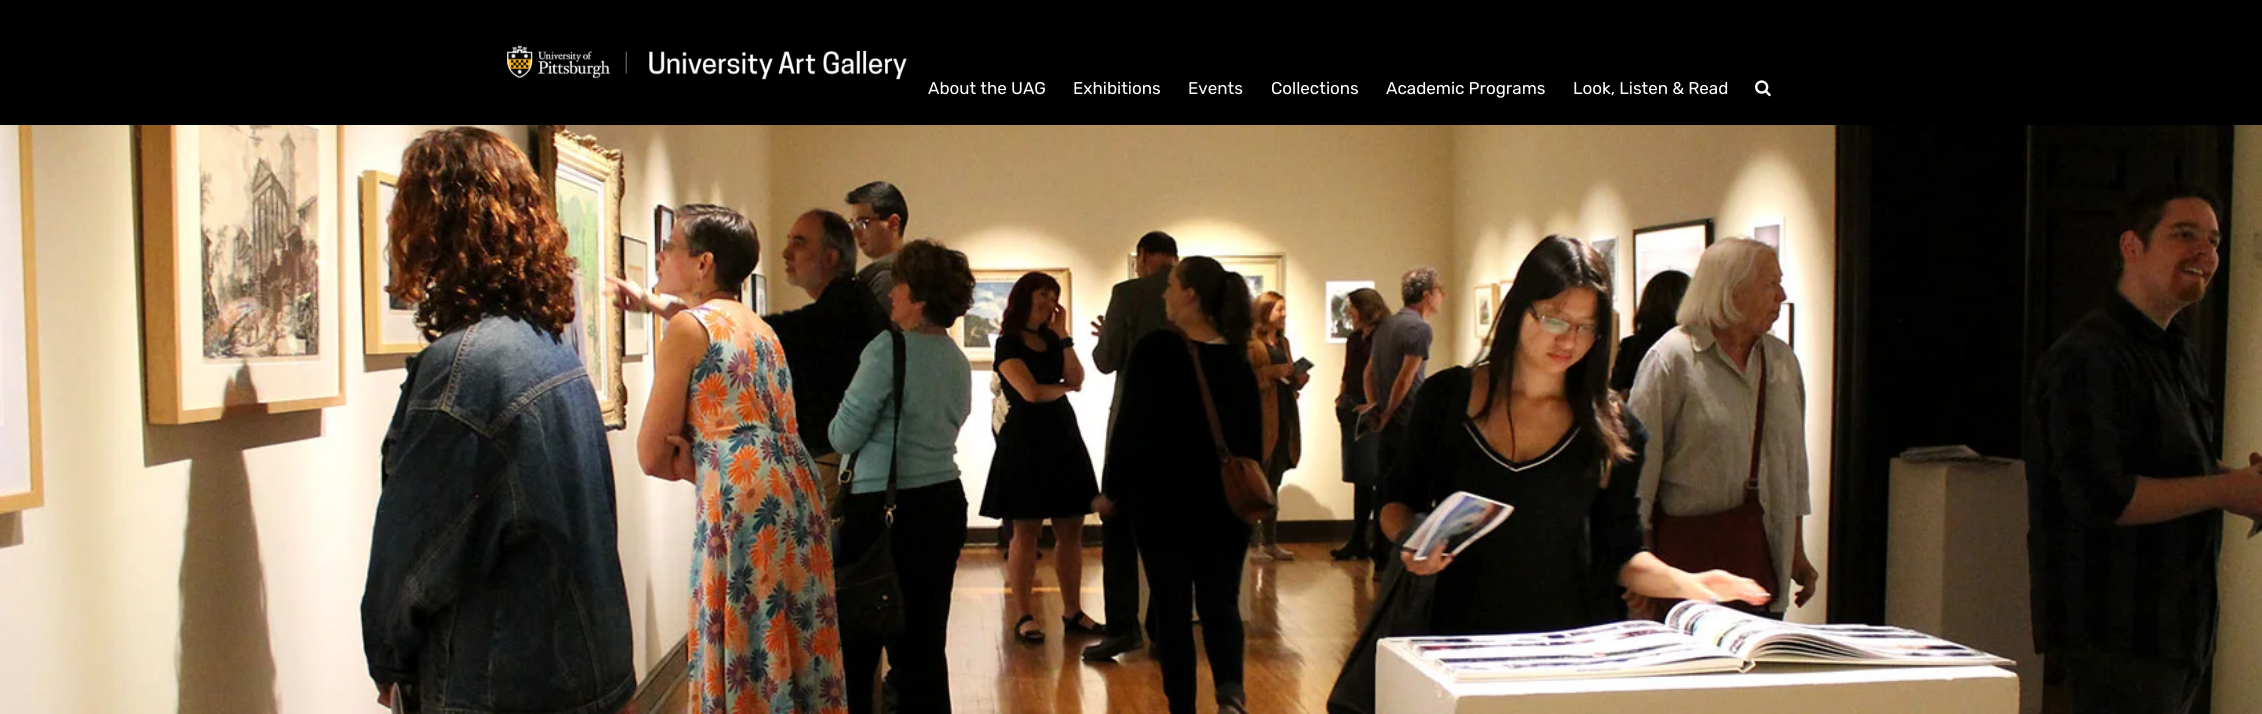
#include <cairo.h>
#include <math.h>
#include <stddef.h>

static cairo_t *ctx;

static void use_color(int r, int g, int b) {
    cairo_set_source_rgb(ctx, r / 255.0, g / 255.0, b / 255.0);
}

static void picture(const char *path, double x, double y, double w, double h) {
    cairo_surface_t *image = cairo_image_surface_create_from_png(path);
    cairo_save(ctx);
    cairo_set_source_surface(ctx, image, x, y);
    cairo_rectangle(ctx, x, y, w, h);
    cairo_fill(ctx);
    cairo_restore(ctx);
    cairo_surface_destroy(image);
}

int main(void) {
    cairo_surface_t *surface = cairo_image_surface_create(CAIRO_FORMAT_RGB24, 2262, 714);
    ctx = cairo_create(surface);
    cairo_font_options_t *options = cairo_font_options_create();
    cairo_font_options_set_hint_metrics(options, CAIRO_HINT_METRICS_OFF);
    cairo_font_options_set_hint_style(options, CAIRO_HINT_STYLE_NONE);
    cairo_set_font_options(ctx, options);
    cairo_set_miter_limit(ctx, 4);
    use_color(0, 0, 0);
    cairo_paint(ctx);
    picture("img1.png", 507, 45, 400, 35);
    cairo_select_font_face(ctx, "Rubik", CAIRO_FONT_SLANT_NORMAL, CAIRO_FONT_WEIGHT_NORMAL);
    cairo_set_font_size(ctx, 17);
    use_color(255, 255, 255);
    cairo_move_to(ctx, 928, 94);
    cairo_show_text(ctx, "About the UAG");
    cairo_move_to(ctx, 1073, 94);
    cairo_show_text(ctx, "Exhibitions");
    cairo_move_to(ctx, 1188, 94);
    cairo_show_text(ctx, "Events");
    cairo_move_to(ctx, 1271, 94);
    cairo_show_text(ctx, "Collections");
    cairo_move_to(ctx, 1386, 94);
    cairo_show_text(ctx, "Academic Programs");
    cairo_move_to(ctx, 1573, 94);
    cairo_show_text(ctx, "Look, Listen & Read");
    picture("img2.png", 1755, 80, 16, 17);
    picture("img3.png", 0, 125, 2262, 589);
    cairo_surface_write_to_png(surface, "result.png");
    cairo_font_options_destroy(options);
    cairo_destroy(ctx);
    cairo_surface_destroy(surface);
    return 0;
}
